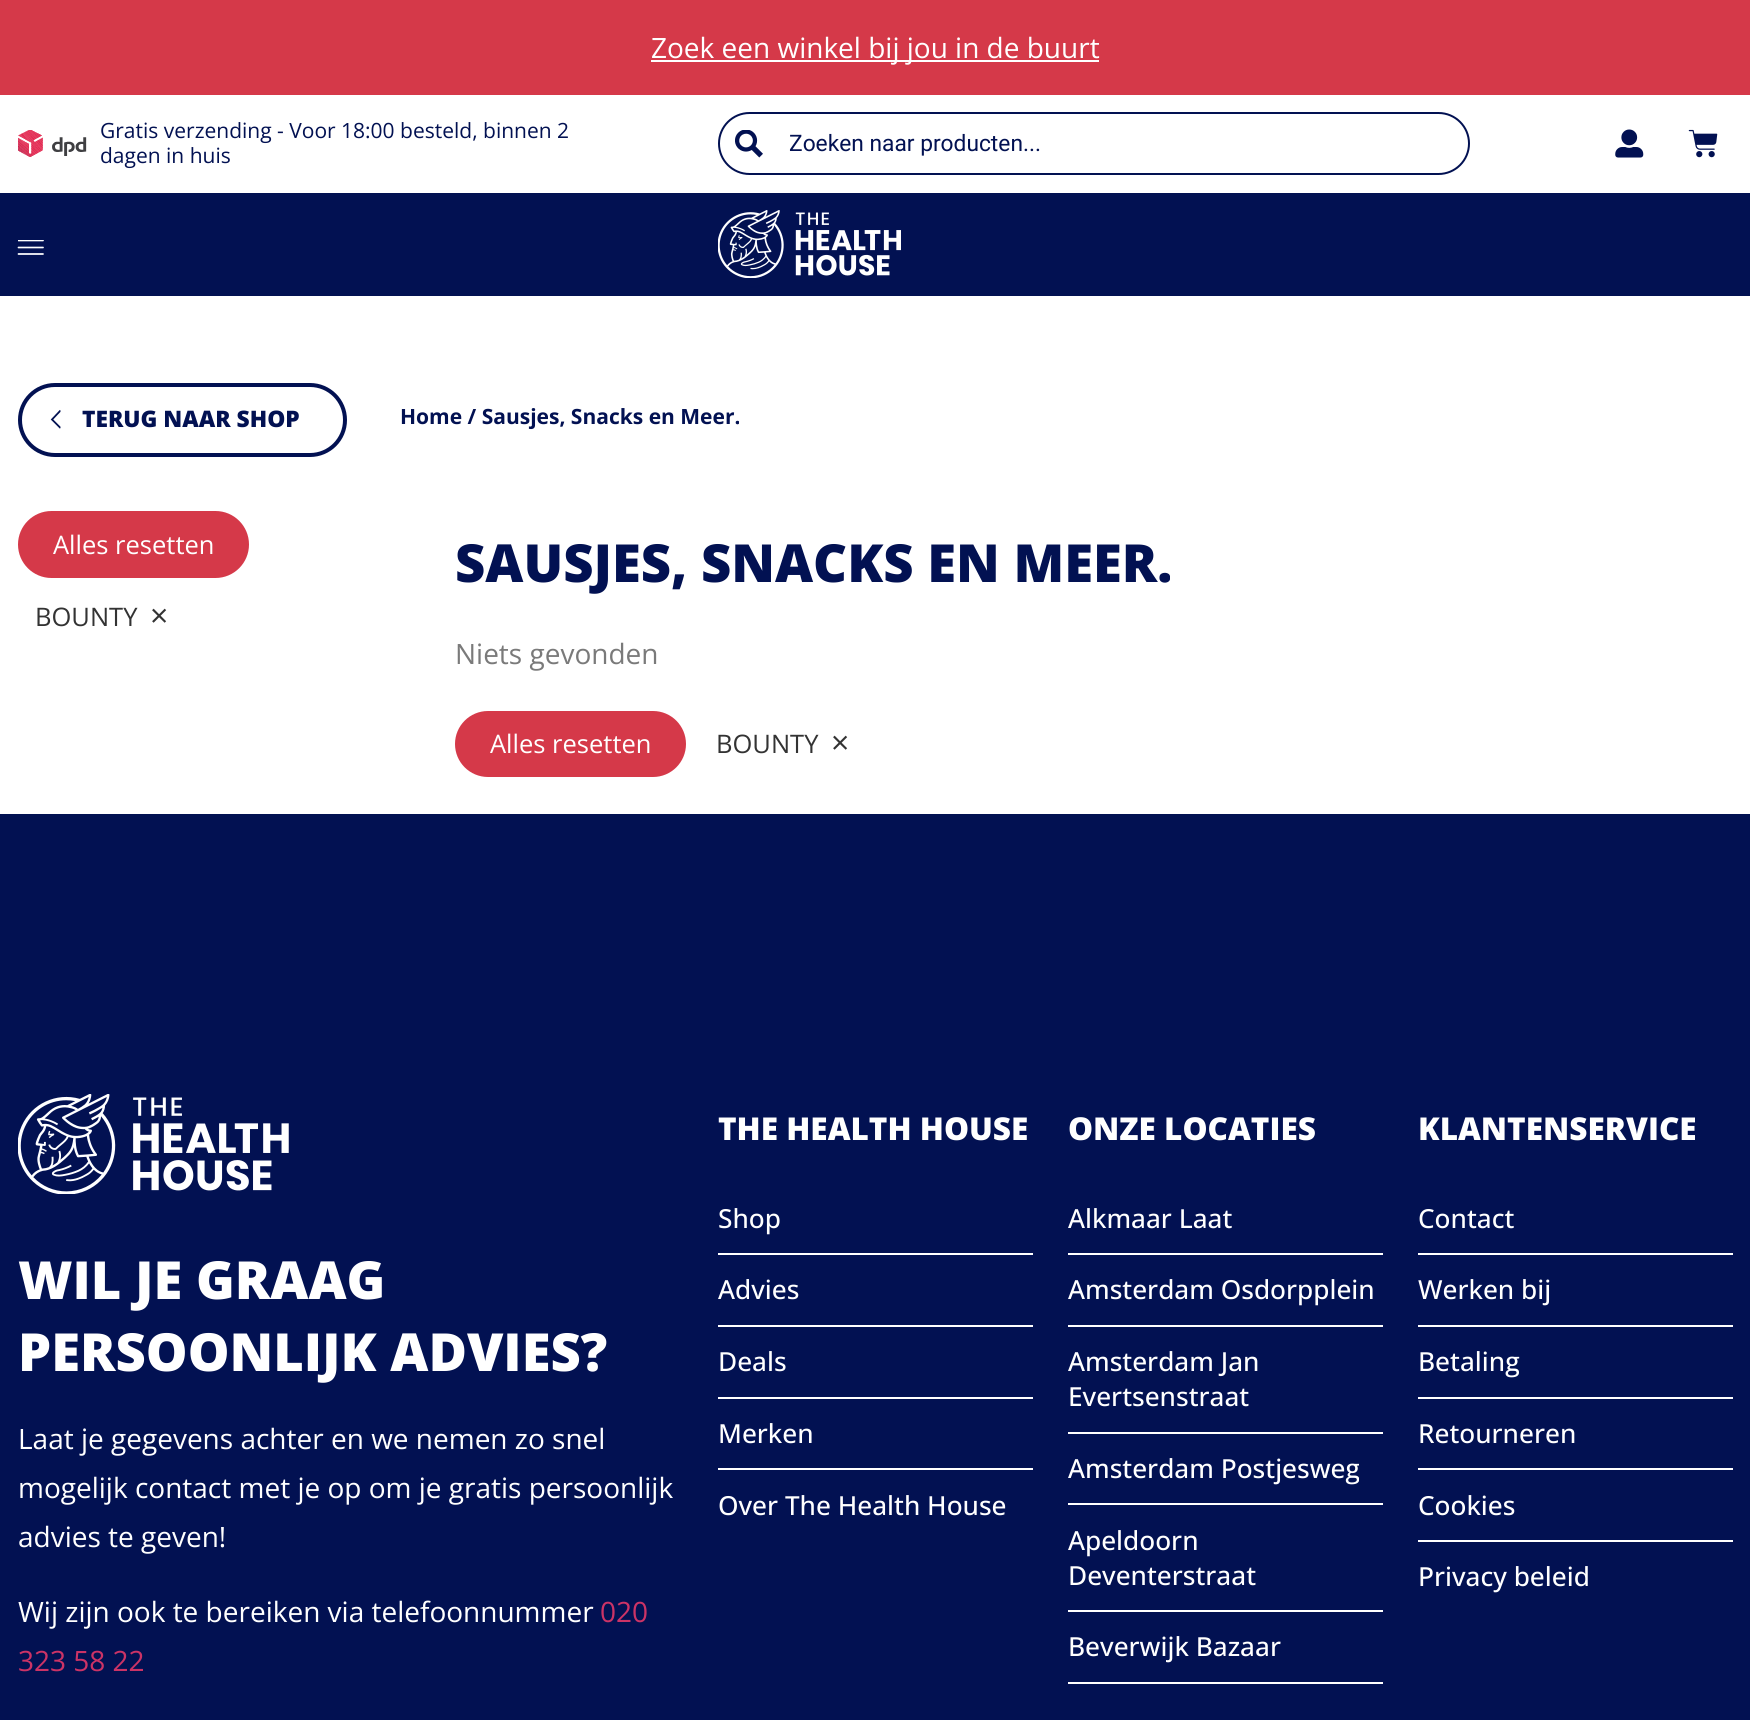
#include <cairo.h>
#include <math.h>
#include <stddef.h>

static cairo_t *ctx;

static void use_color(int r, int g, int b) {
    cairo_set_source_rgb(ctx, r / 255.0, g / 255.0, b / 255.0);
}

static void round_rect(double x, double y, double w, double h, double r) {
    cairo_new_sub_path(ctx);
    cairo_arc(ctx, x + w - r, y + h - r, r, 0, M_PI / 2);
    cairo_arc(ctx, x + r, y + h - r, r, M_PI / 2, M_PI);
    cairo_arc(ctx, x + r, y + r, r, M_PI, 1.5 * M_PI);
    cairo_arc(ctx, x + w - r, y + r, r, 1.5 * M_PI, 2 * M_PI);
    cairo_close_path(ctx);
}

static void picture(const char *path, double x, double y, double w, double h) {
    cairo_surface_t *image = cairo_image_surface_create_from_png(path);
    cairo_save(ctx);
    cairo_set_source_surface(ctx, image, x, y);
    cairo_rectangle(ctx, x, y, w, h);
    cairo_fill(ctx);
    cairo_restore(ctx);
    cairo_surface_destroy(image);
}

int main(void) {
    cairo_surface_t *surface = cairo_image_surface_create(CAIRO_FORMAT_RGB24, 1750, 1720);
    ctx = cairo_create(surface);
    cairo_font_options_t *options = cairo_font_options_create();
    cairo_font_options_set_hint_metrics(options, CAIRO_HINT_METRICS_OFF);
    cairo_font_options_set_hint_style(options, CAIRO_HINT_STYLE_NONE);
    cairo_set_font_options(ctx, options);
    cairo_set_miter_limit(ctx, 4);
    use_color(255, 255, 255);
    cairo_paint(ctx);
    use_color(213, 57, 73);
    cairo_rectangle(ctx, 0, 0, 1750, 95);
    cairo_fill(ctx);
    use_color(255, 255, 255);
    cairo_rectangle(ctx, 651, 60, 448, 2);
    cairo_fill(ctx);
    cairo_select_font_face(ctx, "Open Sans", CAIRO_FONT_SLANT_NORMAL, CAIRO_FONT_WEIGHT_NORMAL);
    cairo_set_font_size(ctx, 28);
    cairo_move_to(ctx, 651, 58);
    cairo_show_text(ctx, "Zoek een winkel bij jou in de buurt");
    picture("img1.png", 18, 130, 69, 27);
    cairo_set_font_size(ctx, 21);
    use_color(2, 17, 82);
    cairo_move_to(ctx, 100, 138);
    cairo_show_text(ctx, "Gratis verzending - Voor 18:00 besteld, binnen 2");
    cairo_move_to(ctx, 100, 163);
    cairo_show_text(ctx, "dagen in huis");
    round_rect(719, 113, 750, 61, 30.5);
    cairo_stroke(ctx);
    picture("img2.png", 735, 130, 28, 28);
    cairo_select_font_face(ctx, "Roboto", CAIRO_FONT_SLANT_NORMAL, CAIRO_FONT_WEIGHT_NORMAL);
    cairo_set_font_size(ctx, 22.75);
    cairo_move_to(ctx, 789, 151);
    cairo_show_text(ctx, "Zoeken naar producten...");
    picture("img3.png", 1615, 129, 29, 29);
    picture("img4.png", 1688, 129, 30, 29);
    cairo_rectangle(ctx, 0, 193, 1750, 103);
    cairo_fill(ctx);
    cairo_new_path(ctx);
    cairo_move_to(ctx, 18.5, 254);
    cairo_line_to(ctx, 43, 254);
    cairo_move_to(ctx, 18.5, 247.5);
    cairo_line_to(ctx, 43, 247.5);
    use_color(255, 255, 255);
    cairo_set_line_width(ctx, 1.7);
    cairo_set_line_cap(ctx, CAIRO_LINE_CAP_ROUND);
    cairo_stroke(ctx);
    cairo_save(ctx);
    cairo_rectangle(ctx, 18, 240, 26, 16);
    cairo_clip(ctx);
    cairo_new_path(ctx);
    cairo_move_to(ctx, 18.5, 240.5);
    cairo_line_to(ctx, 43, 240.5);
    cairo_stroke(ctx);
    cairo_restore(ctx);
    picture("img5.png", 718, 210, 183, 68);
    round_rect(20, 385, 325, 70, 35);
    use_color(2, 17, 82);
    cairo_set_line_width(ctx, 4);
    cairo_set_line_cap(ctx, CAIRO_LINE_CAP_BUTT);
    cairo_stroke(ctx);
    cairo_save(ctx);
    cairo_new_path(ctx);
    cairo_move_to(ctx, 60.5, 409.5);
    cairo_line_to(ctx, 60.5, 429);
    cairo_line_to(ctx, 49.5, 429);
    cairo_line_to(ctx, 49.5, 409.5);
    cairo_close_path(ctx);
    cairo_clip(ctx);
    cairo_new_path(ctx);
    cairo_move_to(ctx, 60.5, 410.5);
    cairo_line_to(ctx, 52, 419.5);
    cairo_line_to(ctx, 60.5, 428);
    cairo_set_line_width(ctx, 1.8);
    cairo_stroke(ctx);
    cairo_restore(ctx);
    cairo_select_font_face(ctx, "Open Sans ExtraBold", CAIRO_FONT_SLANT_NORMAL, CAIRO_FONT_WEIGHT_NORMAL);
    cairo_move_to(ctx, 82, 427);
    cairo_show_text(ctx, "TERUG NAAR SHOP");
    cairo_select_font_face(ctx, "Open Sans", CAIRO_FONT_SLANT_NORMAL, CAIRO_FONT_WEIGHT_BOLD);
    cairo_set_font_size(ctx, 21);
    cairo_move_to(ctx, 400, 424);
    cairo_show_text(ctx, "Home / Sausjes, Snacks en Meer.");
    use_color(213, 57, 73);
    round_rect(18, 511, 231, 67, 33.5);
    cairo_fill(ctx);
    cairo_select_font_face(ctx, "Open Sans", CAIRO_FONT_SLANT_NORMAL, CAIRO_FONT_WEIGHT_NORMAL);
    cairo_set_font_size(ctx, 25.5);
    use_color(255, 255, 255);
    cairo_move_to(ctx, 53, 554);
    cairo_show_text(ctx, "Alles resetten");
    use_color(51, 51, 51);
    cairo_move_to(ctx, 35, 626);
    cairo_show_text(ctx, "BOUNTY");
    cairo_set_font_size(ctx, 32);
    cairo_move_to(ctx, 150, 627);
    cairo_show_text(ctx, "×");
    cairo_set_font_size(ctx, 28);
    use_color(122, 122, 122);
    cairo_move_to(ctx, 455, 664);
    cairo_show_text(ctx, "Niets gevonden");
    use_color(213, 57, 73);
    round_rect(455, 711, 231, 66, 33);
    cairo_fill(ctx);
    cairo_set_font_size(ctx, 25.5);
    use_color(255, 255, 255);
    cairo_move_to(ctx, 490, 753);
    cairo_show_text(ctx, "Alles resetten");
    use_color(51, 51, 51);
    cairo_move_to(ctx, 716, 753);
    cairo_show_text(ctx, "BOUNTY");
    cairo_set_font_size(ctx, 32);
    cairo_move_to(ctx, 831, 754);
    cairo_show_text(ctx, "×");
    cairo_select_font_face(ctx, "Open Sans ExtraBold", CAIRO_FONT_SLANT_NORMAL, CAIRO_FONT_WEIGHT_NORMAL);
    cairo_set_font_size(ctx, 52.5);
    use_color(2, 17, 82);
    cairo_move_to(ctx, 455, 582);
    cairo_show_text(ctx, "SAUSJES, SNACKS EN MEER.");
    cairo_rectangle(ctx, 0, 814, 1750, 906);
    cairo_fill(ctx);
    picture("img6.png", 18, 1094, 271, 100);
    use_color(255, 255, 255);
    cairo_move_to(ctx, 18, 1299);
    cairo_show_text(ctx, "WIL JE GRAAG");
    cairo_move_to(ctx, 18, 1371);
    cairo_show_text(ctx, "PERSOONLIJK ADVIES?");
    cairo_select_font_face(ctx, "Open Sans", CAIRO_FONT_SLANT_NORMAL, CAIRO_FONT_WEIGHT_NORMAL);
    cairo_set_font_size(ctx, 28);
    cairo_move_to(ctx, 18, 1449);
    cairo_show_text(ctx, "Laat je gegevens achter en we nemen zo snel");
    cairo_move_to(ctx, 18, 1498);
    cairo_show_text(ctx, "mogelijk contact met je op om je gratis persoonlijk");
    cairo_move_to(ctx, 18, 1547);
    cairo_show_text(ctx, "advies te geven!");
    cairo_move_to(ctx, 18, 1622);
    cairo_show_text(ctx, "Wij zijn ook te bereiken via telefoonnummer");
    use_color(204, 51, 102);
    cairo_move_to(ctx, 600, 1622);
    cairo_show_text(ctx, "020");
    cairo_move_to(ctx, 18, 1671);
    cairo_show_text(ctx, "323 58 22");
    cairo_select_font_face(ctx, "Open Sans ExtraBold", CAIRO_FONT_SLANT_NORMAL, CAIRO_FONT_WEIGHT_NORMAL);
    cairo_set_font_size(ctx, 31.5);
    use_color(255, 255, 255);
    cairo_move_to(ctx, 718, 1140);
    cairo_show_text(ctx, "THE HEALTH HOUSE");
    cairo_rectangle(ctx, 718, 1253, 315, 2);
    cairo_fill(ctx);
    cairo_select_font_face(ctx, "Open Sans Medium", CAIRO_FONT_SLANT_NORMAL, CAIRO_FONT_WEIGHT_NORMAL);
    cairo_set_font_size(ctx, 26.25);
    cairo_move_to(ctx, 718, 1228);
    cairo_show_text(ctx, "Shop");
    cairo_rectangle(ctx, 718, 1325, 315, 2);
    cairo_fill(ctx);
    cairo_move_to(ctx, 718, 1299);
    cairo_show_text(ctx, "Advies");
    cairo_rectangle(ctx, 718, 1397, 315, 2);
    cairo_fill(ctx);
    cairo_move_to(ctx, 718, 1371);
    cairo_show_text(ctx, "Deals");
    cairo_rectangle(ctx, 718, 1468, 315, 2);
    cairo_fill(ctx);
    cairo_move_to(ctx, 718, 1443);
    cairo_show_text(ctx, "Merken");
    cairo_move_to(ctx, 718, 1515);
    cairo_show_text(ctx, "Over The Health House");
    cairo_select_font_face(ctx, "Open Sans ExtraBold", CAIRO_FONT_SLANT_NORMAL, CAIRO_FONT_WEIGHT_NORMAL);
    cairo_set_font_size(ctx, 31.5);
    cairo_move_to(ctx, 1068, 1140);
    cairo_show_text(ctx, "ONZE LOCATIES");
    cairo_rectangle(ctx, 1068, 1253, 315, 2);
    cairo_fill(ctx);
    cairo_select_font_face(ctx, "Open Sans Medium", CAIRO_FONT_SLANT_NORMAL, CAIRO_FONT_WEIGHT_NORMAL);
    cairo_set_font_size(ctx, 26.25);
    cairo_move_to(ctx, 1068, 1228);
    cairo_show_text(ctx, "Alkmaar Laat");
    cairo_rectangle(ctx, 1068, 1325, 315, 2);
    cairo_fill(ctx);
    cairo_move_to(ctx, 1068, 1299);
    cairo_show_text(ctx, "Amsterdam Osdorpplein");
    cairo_rectangle(ctx, 1068, 1432, 315, 2);
    cairo_fill(ctx);
    cairo_move_to(ctx, 1068, 1371);
    cairo_show_text(ctx, "Amsterdam Jan");
    cairo_move_to(ctx, 1068, 1406);
    cairo_show_text(ctx, "Evertsenstraat");
    cairo_rectangle(ctx, 1068, 1503, 315, 2);
    cairo_fill(ctx);
    cairo_move_to(ctx, 1068, 1478);
    cairo_show_text(ctx, "Amsterdam Postjesweg");
    cairo_rectangle(ctx, 1068, 1610, 315, 2);
    cairo_fill(ctx);
    cairo_move_to(ctx, 1068, 1550);
    cairo_show_text(ctx, "Apeldoorn");
    cairo_move_to(ctx, 1068, 1585);
    cairo_show_text(ctx, "Deventerstraat");
    cairo_rectangle(ctx, 1068, 1682, 315, 2);
    cairo_fill(ctx);
    cairo_move_to(ctx, 1068, 1656);
    cairo_show_text(ctx, "Beverwijk Bazaar");
    cairo_select_font_face(ctx, "Open Sans ExtraBold", CAIRO_FONT_SLANT_NORMAL, CAIRO_FONT_WEIGHT_NORMAL);
    cairo_set_font_size(ctx, 31.5);
    cairo_move_to(ctx, 1418, 1140);
    cairo_show_text(ctx, "KLANTENSERVICE");
    cairo_rectangle(ctx, 1418, 1253, 315, 2);
    cairo_fill(ctx);
    cairo_select_font_face(ctx, "Open Sans Medium", CAIRO_FONT_SLANT_NORMAL, CAIRO_FONT_WEIGHT_NORMAL);
    cairo_set_font_size(ctx, 26.25);
    cairo_move_to(ctx, 1418, 1228);
    cairo_show_text(ctx, "Contact");
    cairo_rectangle(ctx, 1418, 1325, 315, 2);
    cairo_fill(ctx);
    cairo_move_to(ctx, 1418, 1299);
    cairo_show_text(ctx, "Werken bij");
    cairo_rectangle(ctx, 1418, 1397, 315, 2);
    cairo_fill(ctx);
    cairo_move_to(ctx, 1418, 1371);
    cairo_show_text(ctx, "Betaling");
    cairo_rectangle(ctx, 1418, 1468, 315, 2);
    cairo_fill(ctx);
    cairo_move_to(ctx, 1418, 1443);
    cairo_show_text(ctx, "Retourneren");
    cairo_rectangle(ctx, 1418, 1540, 315, 2);
    cairo_fill(ctx);
    cairo_move_to(ctx, 1418, 1515);
    cairo_show_text(ctx, "Cookies");
    cairo_move_to(ctx, 1418, 1586);
    cairo_show_text(ctx, "Privacy beleid");
    cairo_surface_write_to_png(surface, "result.png");
    cairo_font_options_destroy(options);
    cairo_destroy(ctx);
    cairo_surface_destroy(surface);
    return 0;
}
